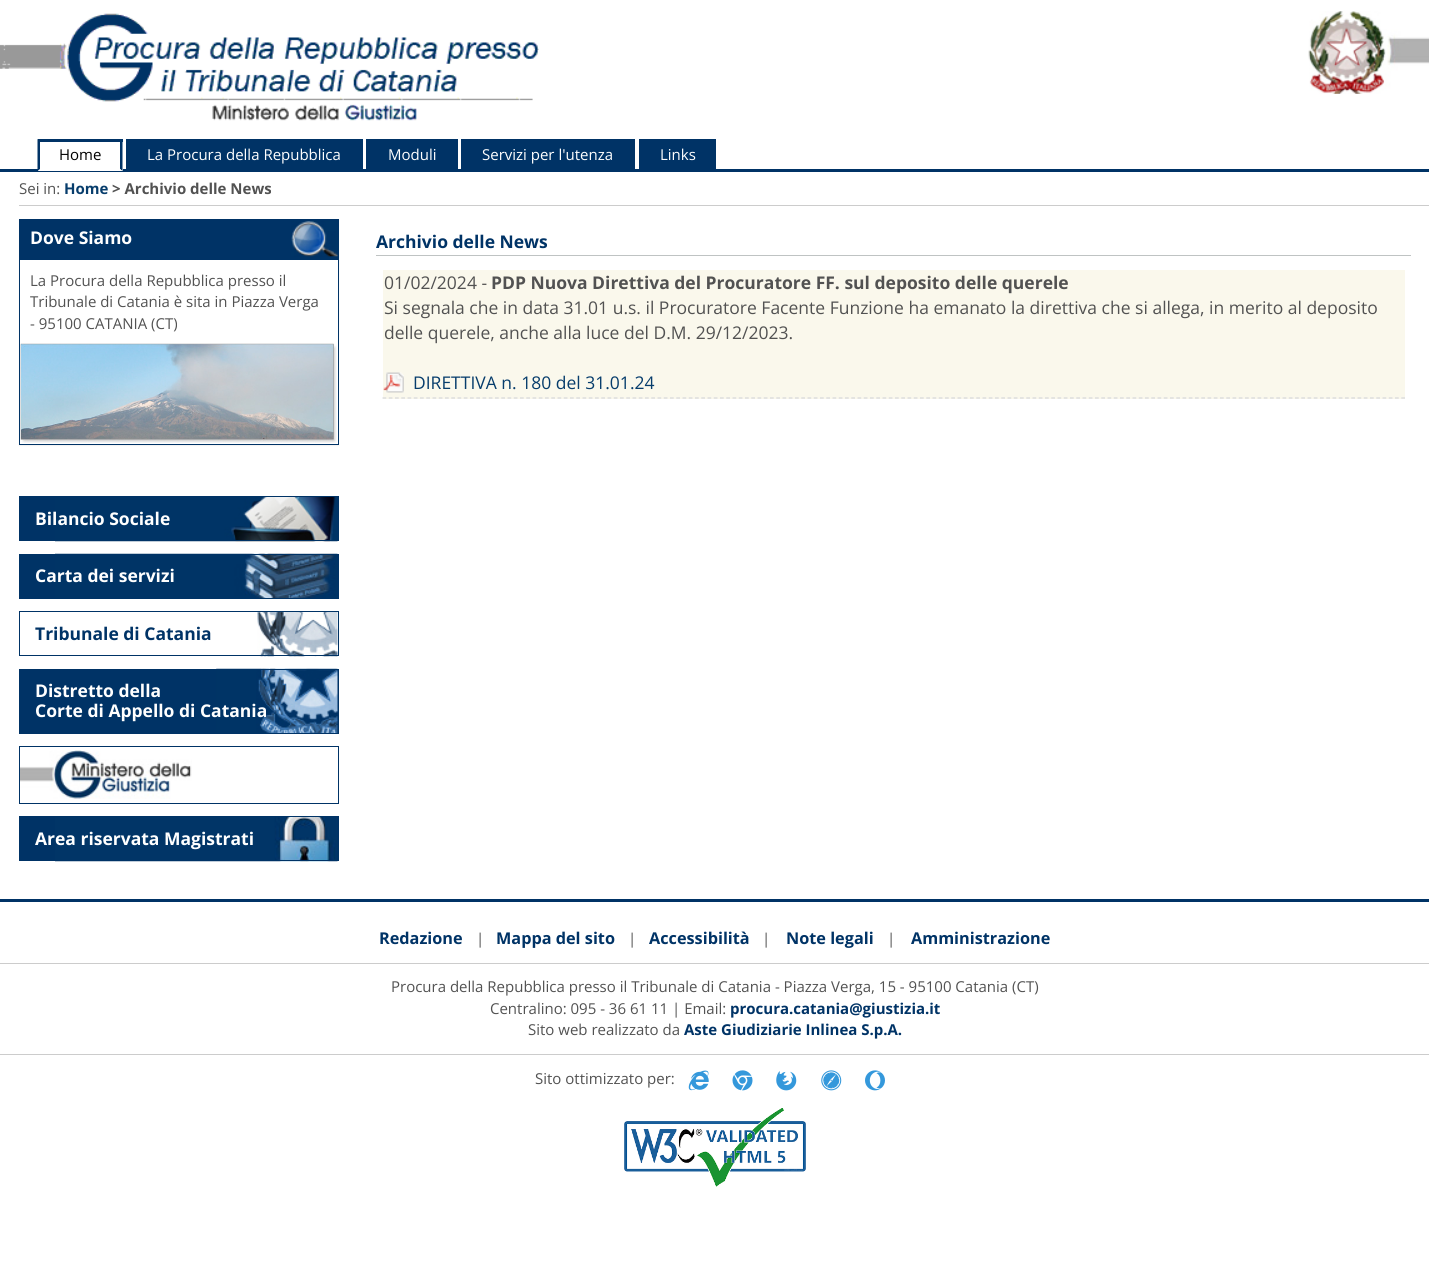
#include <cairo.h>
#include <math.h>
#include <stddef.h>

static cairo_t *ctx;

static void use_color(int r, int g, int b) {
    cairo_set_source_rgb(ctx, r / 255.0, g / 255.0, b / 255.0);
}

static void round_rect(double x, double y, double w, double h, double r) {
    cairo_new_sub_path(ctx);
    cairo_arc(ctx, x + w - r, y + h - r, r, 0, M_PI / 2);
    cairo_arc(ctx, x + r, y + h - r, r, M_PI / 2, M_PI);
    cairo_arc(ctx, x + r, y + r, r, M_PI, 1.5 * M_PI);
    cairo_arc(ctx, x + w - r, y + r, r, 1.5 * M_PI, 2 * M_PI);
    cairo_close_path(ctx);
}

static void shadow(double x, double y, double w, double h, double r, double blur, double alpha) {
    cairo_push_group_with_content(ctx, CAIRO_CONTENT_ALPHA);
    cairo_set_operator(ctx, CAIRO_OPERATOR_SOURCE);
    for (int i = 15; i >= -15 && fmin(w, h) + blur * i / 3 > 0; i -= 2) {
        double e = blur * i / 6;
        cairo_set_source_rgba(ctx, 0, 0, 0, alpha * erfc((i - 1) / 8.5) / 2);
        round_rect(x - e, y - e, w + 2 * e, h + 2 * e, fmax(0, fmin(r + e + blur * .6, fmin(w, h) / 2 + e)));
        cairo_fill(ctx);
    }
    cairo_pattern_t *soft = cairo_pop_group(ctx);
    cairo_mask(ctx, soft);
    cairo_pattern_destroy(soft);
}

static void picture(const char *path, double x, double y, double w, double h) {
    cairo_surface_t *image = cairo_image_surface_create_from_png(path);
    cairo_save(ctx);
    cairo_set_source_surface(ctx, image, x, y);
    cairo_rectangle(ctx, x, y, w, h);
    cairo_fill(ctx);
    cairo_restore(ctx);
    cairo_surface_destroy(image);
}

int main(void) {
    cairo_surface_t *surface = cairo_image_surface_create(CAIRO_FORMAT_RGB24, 1429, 1261);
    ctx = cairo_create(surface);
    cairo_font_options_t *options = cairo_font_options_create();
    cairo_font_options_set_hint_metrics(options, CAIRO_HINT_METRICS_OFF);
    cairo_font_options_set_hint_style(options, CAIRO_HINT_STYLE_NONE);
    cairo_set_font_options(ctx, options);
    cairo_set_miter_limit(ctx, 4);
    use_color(255, 255, 255);
    cairo_paint(ctx);
    picture("img1.png", 0, 13, 539, 108);
    picture("img2.png", 1308, 11, 121, 83);
    use_color(0, 51, 102);
    cairo_rectangle(ctx, 0, 169, 1429, 3);
    cairo_fill(ctx);
    use_color(255, 255, 255);
    cairo_rectangle(ctx, 38, 169, 85, 2);
    cairo_fill(ctx);
    use_color(0, 51, 102);
    cairo_rectangle(ctx, 38, 139, 85, 3);
    cairo_fill(ctx);
    cairo_new_path(ctx);
    cairo_move_to(ctx, 122.5, 139);
    cairo_line_to(ctx, 122.5, 171);
    cairo_line_to(ctx, 120, 169);
    cairo_line_to(ctx, 120, 141);
    cairo_close_path(ctx);
    cairo_fill(ctx);
    use_color(255, 255, 255);
    cairo_new_path(ctx);
    cairo_move_to(ctx, 122, 171);
    cairo_line_to(ctx, 38, 171);
    cairo_line_to(ctx, 40, 169);
    cairo_line_to(ctx, 120, 169);
    cairo_close_path(ctx);
    cairo_fill(ctx);
    use_color(0, 51, 102);
    cairo_new_path(ctx);
    cairo_move_to(ctx, 37.5, 171);
    cairo_line_to(ctx, 37.5, 139);
    cairo_line_to(ctx, 40, 141);
    cairo_line_to(ctx, 40, 169);
    cairo_close_path(ctx);
    cairo_fill(ctx);
    cairo_select_font_face(ctx, "Open Sans", CAIRO_FONT_SLANT_NORMAL, CAIRO_FONT_WEIGHT_NORMAL);
    cairo_set_font_size(ctx, 15);
    use_color(0, 0, 0);
    cairo_move_to(ctx, 59, 160);
    cairo_show_text(ctx, "Home");
    use_color(0, 51, 102);
    cairo_rectangle(ctx, 126, 139, 237, 30);
    cairo_fill(ctx);
    use_color(255, 255, 255);
    cairo_move_to(ctx, 147, 160);
    cairo_show_text(ctx, "La Procura della Repubblica");
    use_color(0, 51, 102);
    cairo_rectangle(ctx, 366, 139, 92, 30);
    cairo_fill(ctx);
    use_color(255, 255, 255);
    cairo_move_to(ctx, 388, 160);
    cairo_show_text(ctx, "Moduli");
    use_color(0, 51, 102);
    cairo_rectangle(ctx, 461, 139, 174, 30);
    cairo_fill(ctx);
    use_color(255, 255, 255);
    cairo_move_to(ctx, 482, 160);
    cairo_show_text(ctx, "Servizi per l'utenza");
    use_color(0, 51, 102);
    cairo_rectangle(ctx, 639, 139, 77, 30);
    cairo_fill(ctx);
    use_color(255, 255, 255);
    cairo_move_to(ctx, 660, 160);
    cairo_show_text(ctx, "Links");
    use_color(204, 204, 204);
    cairo_rectangle(ctx, 19, 205, 1410, 1);
    cairo_fill(ctx);
    use_color(82, 82, 82);
    cairo_move_to(ctx, 19, 194);
    cairo_show_text(ctx, "Sei in:");
    cairo_select_font_face(ctx, "Open Sans", CAIRO_FONT_SLANT_NORMAL, CAIRO_FONT_WEIGHT_BOLD);
    use_color(7, 61, 108);
    cairo_move_to(ctx, 64, 194);
    cairo_show_text(ctx, "Home");
    use_color(82, 82, 82);
    cairo_move_to(ctx, 112, 194);
    cairo_show_text(ctx, "> Archivio delle News");
    use_color(0, 0, 0);
    shadow(19, 220, 320, 226, 0, 0.5, 0.05);
    use_color(255, 255, 255);
    cairo_rectangle(ctx, 20, 260, 318, 184);
    cairo_fill(ctx);
    cairo_rectangle(ctx, 19.5, 219.5, 319, 225);
    use_color(0, 51, 102);
    cairo_set_line_width(ctx, 1);
    cairo_stroke(ctx);
    cairo_rectangle(ctx, 20, 220, 318, 40);
    cairo_fill(ctx);
    picture("img3.png", 291, 221, 47, 36);
    cairo_set_font_size(ctx, 17.5);
    use_color(255, 255, 255);
    cairo_move_to(ctx, 30, 244);
    cairo_show_text(ctx, "Dove Siamo");
    cairo_select_font_face(ctx, "Open Sans", CAIRO_FONT_SLANT_NORMAL, CAIRO_FONT_WEIGHT_NORMAL);
    cairo_set_font_size(ctx, 15);
    use_color(82, 82, 82);
    cairo_move_to(ctx, 30, 286);
    cairo_show_text(ctx, "La Procura della Repubblica presso il");
    cairo_move_to(ctx, 30, 307);
    cairo_show_text(ctx, "Tribunale di Catania è sita in Piazza Verga");
    cairo_move_to(ctx, 30, 329);
    cairo_show_text(ctx, "- 95100 CATANIA (CT)");
    picture("img4.png", 20, 343, 317, 100);
    use_color(0, 51, 102);
    cairo_rectangle(ctx, 20, 497, 318, 43);
    cairo_fill(ctx);
    picture("img5.png", 55, 497, 283, 45);
    cairo_rectangle(ctx, 19.5, 496.5, 319, 44);
    cairo_stroke(ctx);
    cairo_select_font_face(ctx, "Open Sans", CAIRO_FONT_SLANT_NORMAL, CAIRO_FONT_WEIGHT_BOLD);
    cairo_set_font_size(ctx, 17.5);
    use_color(255, 255, 255);
    cairo_move_to(ctx, 35, 525);
    cairo_show_text(ctx, "Bilancio Sociale");
    use_color(0, 51, 102);
    cairo_rectangle(ctx, 20, 555, 318, 43);
    cairo_fill(ctx);
    picture("img6.png", 55, 553, 283, 45);
    cairo_rectangle(ctx, 19.5, 554.5, 319, 44);
    cairo_stroke(ctx);
    use_color(255, 255, 255);
    cairo_move_to(ctx, 35, 582);
    cairo_show_text(ctx, "Carta dei servizi");
    picture("img7.png", 257, 612, 81, 45);
    cairo_rectangle(ctx, 19.5, 611.5, 319, 44);
    use_color(0, 51, 102);
    cairo_stroke(ctx);
    cairo_move_to(ctx, 35, 640);
    cairo_show_text(ctx, "Tribunale di Catania");
    cairo_rectangle(ctx, 20, 670, 318, 63);
    cairo_fill(ctx);
    picture("img8.png", 216, 668, 122, 65);
    cairo_rectangle(ctx, 19.5, 669.5, 319, 64);
    cairo_stroke(ctx);
    use_color(255, 255, 255);
    cairo_move_to(ctx, 35, 697);
    cairo_show_text(ctx, "Distretto della");
    cairo_move_to(ctx, 35, 717);
    cairo_show_text(ctx, "Corte di Appello di Catania");
    picture("img9.png", 20, 750, 172, 49);
    cairo_rectangle(ctx, 19.5, 746.5, 319, 57);
    use_color(0, 51, 102);
    cairo_stroke(ctx);
    cairo_rectangle(ctx, 20, 817, 318, 43);
    cairo_fill(ctx);
    picture("img10.png", 55, 817, 283, 45);
    cairo_rectangle(ctx, 19.5, 816.5, 319, 44);
    cairo_stroke(ctx);
    use_color(255, 255, 255);
    cairo_move_to(ctx, 35, 845);
    cairo_show_text(ctx, "Area riservata Magistrati");
    use_color(191, 195, 195);
    cairo_rectangle(ctx, 376, 255, 1035, 1);
    cairo_fill(ctx);
    use_color(0, 51, 102);
    cairo_move_to(ctx, 376, 248);
    cairo_show_text(ctx, "Archivio delle News");
    use_color(250, 248, 236);
    cairo_rectangle(ctx, 383, 270, 1022, 129);
    cairo_fill(ctx);
    cairo_new_path(ctx);
    cairo_move_to(ctx, 382.5, 398);
    cairo_line_to(ctx, 1405, 398);
    use_color(214, 216, 219);
    cairo_set_line_width(ctx, 1.2);
    cairo_set_dash(ctx, (double[]){3.75, 2.5}, 2, 0);
    cairo_stroke(ctx);
    cairo_select_font_face(ctx, "Open Sans", CAIRO_FONT_SLANT_NORMAL, CAIRO_FONT_WEIGHT_NORMAL);
    use_color(82, 82, 82);
    cairo_move_to(ctx, 384, 289);
    cairo_show_text(ctx, "01/02/2024 -");
    cairo_select_font_face(ctx, "Open Sans", CAIRO_FONT_SLANT_NORMAL, CAIRO_FONT_WEIGHT_BOLD);
    cairo_move_to(ctx, 491, 289);
    cairo_show_text(ctx, "PDP Nuova Direttiva del Procuratore FF. sul deposito delle querele");
    cairo_select_font_face(ctx, "Open Sans", CAIRO_FONT_SLANT_NORMAL, CAIRO_FONT_WEIGHT_NORMAL);
    cairo_move_to(ctx, 384, 314);
    cairo_show_text(ctx, "Si segnala che in data 31.01 u.s. il Procuratore Facente Funzione ha emanato la direttiva che si allega, in merito al deposito");
    cairo_move_to(ctx, 384, 339);
    cairo_show_text(ctx, "delle querele, anche alla luce del D.M. 29/12/2023.");
    picture("img11.png", 383, 372, 21, 21);
    use_color(7, 61, 108);
    cairo_move_to(ctx, 413, 389);
    cairo_show_text(ctx, "DIRETTIVA n. 180 del 31.01.24");
    use_color(0, 51, 102);
    cairo_rectangle(ctx, 0, 899, 1429, 3);
    cairo_fill(ctx);
    cairo_select_font_face(ctx, "Open Sans", CAIRO_FONT_SLANT_NORMAL, CAIRO_FONT_WEIGHT_BOLD);
    cairo_set_font_size(ctx, 16.25);
    cairo_move_to(ctx, 379, 944);
    cairo_show_text(ctx, "Redazione");
    cairo_select_font_face(ctx, "Open Sans", CAIRO_FONT_SLANT_NORMAL, CAIRO_FONT_WEIGHT_NORMAL);
    cairo_set_font_size(ctx, 15);
    use_color(82, 82, 82);
    cairo_move_to(ctx, 476, 944);
    cairo_show_text(ctx, "|");
    cairo_select_font_face(ctx, "Open Sans", CAIRO_FONT_SLANT_NORMAL, CAIRO_FONT_WEIGHT_BOLD);
    cairo_set_font_size(ctx, 16.25);
    use_color(0, 51, 102);
    cairo_move_to(ctx, 496, 944);
    cairo_show_text(ctx, "Mappa del sito");
    cairo_select_font_face(ctx, "Open Sans", CAIRO_FONT_SLANT_NORMAL, CAIRO_FONT_WEIGHT_NORMAL);
    cairo_set_font_size(ctx, 15);
    use_color(82, 82, 82);
    cairo_move_to(ctx, 628, 944);
    cairo_show_text(ctx, "|");
    cairo_select_font_face(ctx, "Open Sans", CAIRO_FONT_SLANT_NORMAL, CAIRO_FONT_WEIGHT_BOLD);
    cairo_set_font_size(ctx, 16.25);
    use_color(0, 51, 102);
    cairo_move_to(ctx, 649, 944);
    cairo_show_text(ctx, "Accessibilità");
    cairo_select_font_face(ctx, "Open Sans", CAIRO_FONT_SLANT_NORMAL, CAIRO_FONT_WEIGHT_NORMAL);
    cairo_set_font_size(ctx, 15);
    use_color(82, 82, 82);
    cairo_move_to(ctx, 762, 944);
    cairo_show_text(ctx, "|");
    cairo_select_font_face(ctx, "Open Sans", CAIRO_FONT_SLANT_NORMAL, CAIRO_FONT_WEIGHT_BOLD);
    cairo_set_font_size(ctx, 16.25);
    use_color(0, 51, 102);
    cairo_move_to(ctx, 786, 944);
    cairo_show_text(ctx, "Note legali");
    cairo_select_font_face(ctx, "Open Sans", CAIRO_FONT_SLANT_NORMAL, CAIRO_FONT_WEIGHT_NORMAL);
    cairo_set_font_size(ctx, 15);
    use_color(82, 82, 82);
    cairo_move_to(ctx, 887, 944);
    cairo_show_text(ctx, "|");
    cairo_select_font_face(ctx, "Open Sans", CAIRO_FONT_SLANT_NORMAL, CAIRO_FONT_WEIGHT_BOLD);
    cairo_set_font_size(ctx, 16.25);
    use_color(0, 51, 102);
    cairo_move_to(ctx, 911, 944);
    cairo_show_text(ctx, "Amministrazione");
    use_color(204, 204, 204);
    cairo_rectangle(ctx, 0, 963, 1429, 1);
    cairo_fill(ctx);
    cairo_select_font_face(ctx, "Open Sans", CAIRO_FONT_SLANT_NORMAL, CAIRO_FONT_WEIGHT_NORMAL);
    cairo_set_font_size(ctx, 15);
    use_color(82, 82, 82);
    cairo_move_to(ctx, 391, 992);
    cairo_show_text(ctx, "Procura della Repubblica presso il Tribunale di Catania - Piazza Verga, 15 - 95100 Catania (CT)");
    cairo_move_to(ctx, 490, 1014);
    cairo_show_text(ctx, "Centralino: 095 - 36 61 11 | Email:");
    cairo_select_font_face(ctx, "Open Sans", CAIRO_FONT_SLANT_NORMAL, CAIRO_FONT_WEIGHT_BOLD);
    use_color(0, 51, 102);
    cairo_move_to(ctx, 730, 1014);
    cairo_show_text(ctx, "procura.catania@giustizia.it");
    cairo_select_font_face(ctx, "Open Sans", CAIRO_FONT_SLANT_NORMAL, CAIRO_FONT_WEIGHT_NORMAL);
    use_color(82, 82, 82);
    cairo_move_to(ctx, 528, 1035);
    cairo_show_text(ctx, "Sito web realizzato da");
    cairo_select_font_face(ctx, "Open Sans", CAIRO_FONT_SLANT_NORMAL, CAIRO_FONT_WEIGHT_BOLD);
    use_color(0, 51, 102);
    cairo_move_to(ctx, 684, 1035);
    cairo_show_text(ctx, "Aste Giudiziarie Inlinea S.p.A.");
    use_color(204, 204, 204);
    cairo_rectangle(ctx, 0, 1054, 1429, 1);
    cairo_fill(ctx);
    cairo_select_font_face(ctx, "Open Sans", CAIRO_FONT_SLANT_NORMAL, CAIRO_FONT_WEIGHT_NORMAL);
    use_color(82, 82, 82);
    cairo_move_to(ctx, 535, 1084);
    cairo_show_text(ctx, "Sito ottimizzato per:");
    picture("img12.png", 688, 1070, 21, 21);
    picture("img13.png", 732, 1070, 21, 21);
    picture("img14.png", 776, 1071, 21, 20);
    picture("img15.png", 821, 1070, 21, 21);
    picture("img16.png", 865, 1070, 20, 21);
    picture("img17.png", 624, 1108, 182, 79);
    cairo_surface_write_to_png(surface, "result.png");
    cairo_font_options_destroy(options);
    cairo_destroy(ctx);
    cairo_surface_destroy(surface);
    return 0;
}
